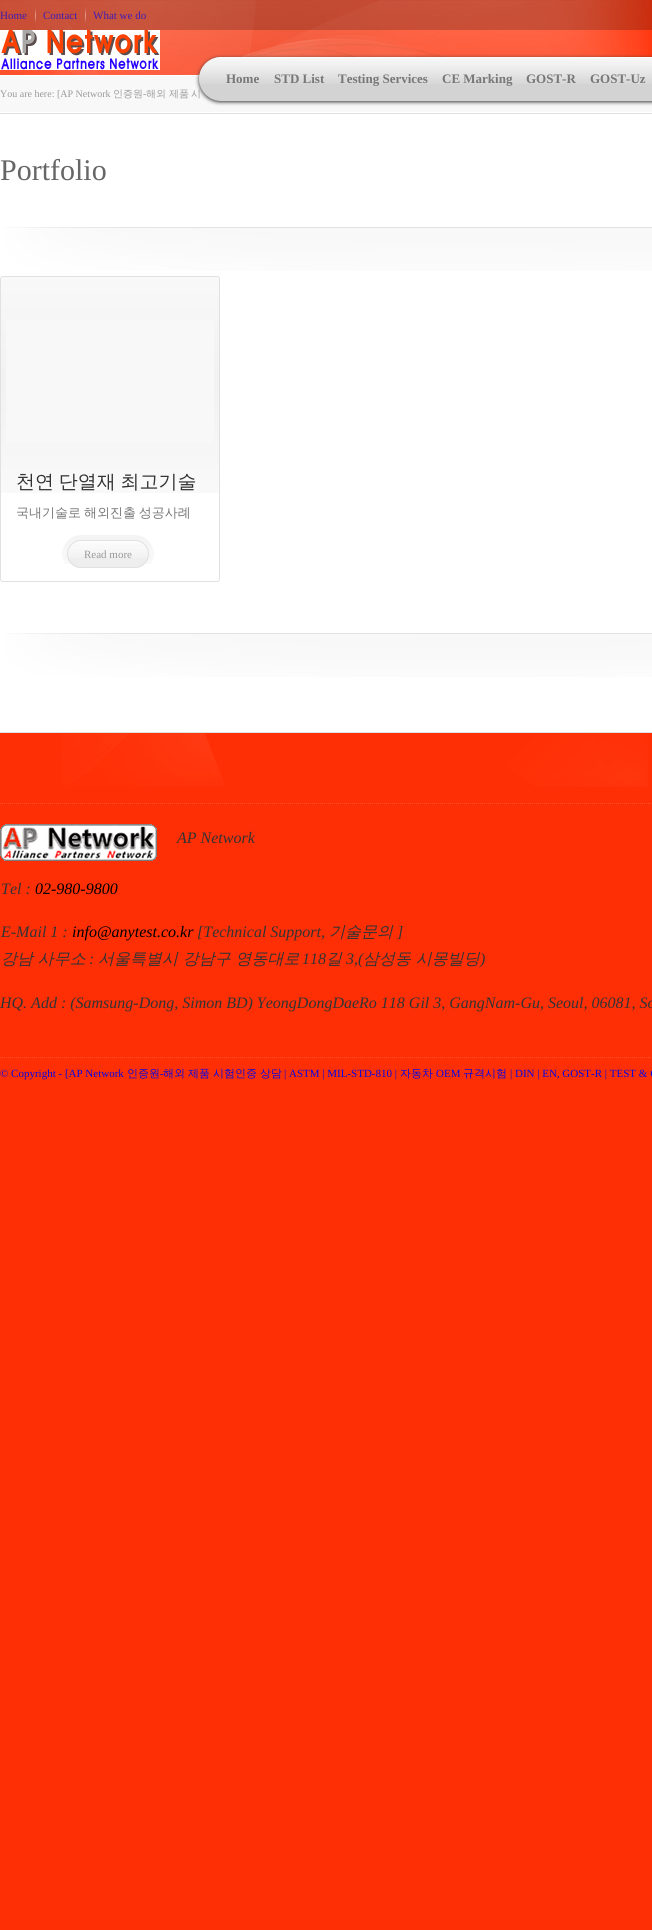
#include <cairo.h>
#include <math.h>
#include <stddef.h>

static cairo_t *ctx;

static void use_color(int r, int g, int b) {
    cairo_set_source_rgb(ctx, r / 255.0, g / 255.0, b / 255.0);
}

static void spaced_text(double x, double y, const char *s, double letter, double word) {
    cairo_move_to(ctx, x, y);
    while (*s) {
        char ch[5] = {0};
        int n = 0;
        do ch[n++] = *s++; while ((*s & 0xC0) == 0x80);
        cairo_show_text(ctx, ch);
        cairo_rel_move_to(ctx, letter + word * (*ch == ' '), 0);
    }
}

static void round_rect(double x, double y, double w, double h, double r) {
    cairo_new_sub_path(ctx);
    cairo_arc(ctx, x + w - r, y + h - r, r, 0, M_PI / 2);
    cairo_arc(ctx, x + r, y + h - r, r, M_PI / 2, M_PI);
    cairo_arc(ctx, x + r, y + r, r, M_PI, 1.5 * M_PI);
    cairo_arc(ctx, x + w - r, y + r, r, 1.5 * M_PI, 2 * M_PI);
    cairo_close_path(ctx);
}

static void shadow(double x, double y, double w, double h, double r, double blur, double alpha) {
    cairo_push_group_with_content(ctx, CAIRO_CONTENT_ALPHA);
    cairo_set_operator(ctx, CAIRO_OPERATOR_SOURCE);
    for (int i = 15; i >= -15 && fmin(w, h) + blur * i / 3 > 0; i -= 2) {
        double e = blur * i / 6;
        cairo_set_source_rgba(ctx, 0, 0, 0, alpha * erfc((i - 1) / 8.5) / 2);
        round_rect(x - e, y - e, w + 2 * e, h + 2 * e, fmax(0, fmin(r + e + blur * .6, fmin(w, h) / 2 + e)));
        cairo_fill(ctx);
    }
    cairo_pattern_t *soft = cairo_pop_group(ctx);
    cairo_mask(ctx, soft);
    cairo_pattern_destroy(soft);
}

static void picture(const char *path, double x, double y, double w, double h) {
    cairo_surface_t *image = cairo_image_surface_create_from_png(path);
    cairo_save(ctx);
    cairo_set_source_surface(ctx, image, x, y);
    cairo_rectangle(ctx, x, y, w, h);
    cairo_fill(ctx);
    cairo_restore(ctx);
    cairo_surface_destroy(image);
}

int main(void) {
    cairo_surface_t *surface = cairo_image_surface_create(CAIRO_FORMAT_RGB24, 652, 1930);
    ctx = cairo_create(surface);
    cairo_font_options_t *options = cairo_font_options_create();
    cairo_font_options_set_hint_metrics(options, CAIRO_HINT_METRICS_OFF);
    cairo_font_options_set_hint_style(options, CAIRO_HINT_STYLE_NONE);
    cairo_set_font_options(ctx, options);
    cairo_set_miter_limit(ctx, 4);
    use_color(255, 47, 5);
    cairo_paint(ctx);
    picture("img1.png", 0, 0, 652, 75);
    cairo_set_source_rgba(ctx, 0, 0, 0, 0.21);
    cairo_rectangle(ctx, 0, 0, 652, 30);
    cairo_fill(ctx);
    cairo_select_font_face(ctx, "Liberation Serif", CAIRO_FONT_SLANT_NORMAL, CAIRO_FONT_WEIGHT_NORMAL);
    cairo_set_font_size(ctx, 11);
    use_color(65, 28, 175);
    cairo_move_to(ctx, 0, 19);
    cairo_show_text(ctx, "Home");
    picture("img2.png", 35, 8, 1, 15);
    cairo_move_to(ctx, 43, 19);
    cairo_show_text(ctx, "Contact");
    picture("img3.png", 85, 8, 1, 15);
    cairo_move_to(ctx, 93, 19);
    cairo_show_text(ctx, "What we do");
    picture("img4.png", 0, 30, 160, 40);
    use_color(248, 248, 248);
    cairo_rectangle(ctx, 0, 76, 652, 36);
    cairo_fill(ctx);
    use_color(255, 255, 255);
    cairo_rectangle(ctx, 0, 75, 200, 1);
    cairo_fill(ctx);
    use_color(51, 51, 51);
    shadow(199, 58, 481, 44, 22, 2, 1);
    cairo_select_font_face(ctx, "WenQuanYi Zen Hei Medium", CAIRO_FONT_SLANT_NORMAL, CAIRO_FONT_WEIGHT_NORMAL);
    cairo_set_font_size(ctx, 10);
    use_color(153, 153, 153);
    cairo_move_to(ctx, 191, 97);
    cairo_show_text(ctx, "시");
    use_color(211, 211, 211);
    cairo_new_path(ctx);
    cairo_move_to(ctx, 221, 57);
    cairo_line_to(ctx, 652, 57);
    cairo_line_to(ctx, 652, 101);
    cairo_line_to(ctx, 221, 101);
    cairo_curve_to(ctx, 209, 101, 199, 91, 199, 79);
    cairo_curve_to(ctx, 199, 67, 209, 57, 221, 57);
    cairo_close_path(ctx);
    cairo_fill(ctx);
    picture("img5.png", 199, 57, 453, 27);
    cairo_select_font_face(ctx, "Liberation Serif", CAIRO_FONT_SLANT_NORMAL, CAIRO_FONT_WEIGHT_BOLD);
    cairo_set_font_size(ctx, 13);
    use_color(119, 119, 119);
    cairo_move_to(ctx, 226, 83);
    cairo_show_text(ctx, "Home");
    cairo_move_to(ctx, 274, 83);
    cairo_show_text(ctx, "STD List");
    cairo_move_to(ctx, 338, 83);
    cairo_show_text(ctx, "Testing Services");
    cairo_move_to(ctx, 442, 83);
    cairo_show_text(ctx, "CE Marking");
    cairo_move_to(ctx, 526, 83);
    cairo_show_text(ctx, "GOST-R");
    cairo_move_to(ctx, 590, 83);
    cairo_show_text(ctx, "GOST-Uz");
    use_color(255, 255, 255);
    cairo_rectangle(ctx, 0, 112, 652, 1);
    cairo_fill(ctx);
    cairo_select_font_face(ctx, "Liberation Serif", CAIRO_FONT_SLANT_NORMAL, CAIRO_FONT_WEIGHT_NORMAL);
    cairo_set_font_size(ctx, 10);
    use_color(153, 153, 153);
    cairo_move_to(ctx, 0, 97);
    cairo_show_text(ctx, "You are here: [AP Network");
    cairo_select_font_face(ctx, "WenQuanYi Zen Hei Medium", CAIRO_FONT_SLANT_NORMAL, CAIRO_FONT_WEIGHT_NORMAL);
    cairo_move_to(ctx, 113, 97);
    cairo_show_text(ctx, "인증원");
    cairo_select_font_face(ctx, "Liberation Serif", CAIRO_FONT_SLANT_NORMAL, CAIRO_FONT_WEIGHT_NORMAL);
    cairo_move_to(ctx, 143, 97);
    cairo_show_text(ctx, "-");
    cairo_select_font_face(ctx, "WenQuanYi Zen Hei Medium", CAIRO_FONT_SLANT_NORMAL, CAIRO_FONT_WEIGHT_NORMAL);
    cairo_move_to(ctx, 146, 97);
    cairo_show_text(ctx, "해외");
    cairo_move_to(ctx, 169, 97);
    cairo_show_text(ctx, "제품");
    use_color(255, 255, 255);
    cairo_rectangle(ctx, 0, 114, 652, 618);
    cairo_fill(ctx);
    use_color(225, 225, 225);
    cairo_rectangle(ctx, 0, 113, 652, 1);
    cairo_fill(ctx);
    cairo_rectangle(ctx, 0, 732, 652, 1);
    cairo_fill(ctx);
    cairo_select_font_face(ctx, "Liberation Serif", CAIRO_FONT_SLANT_NORMAL, CAIRO_FONT_WEIGHT_NORMAL);
    cairo_set_font_size(ctx, 30);
    use_color(102, 102, 102);
    cairo_move_to(ctx, 0, 180);
    cairo_show_text(ctx, "Portfolio");
    picture("img6.png", 4, 227, 648, 44);
    picture("img7.png", 1, 277, 218, 216);
    round_rect(0.5, 276.5, 219, 305, 2.5);
    use_color(225, 225, 225);
    cairo_set_line_width(ctx, 1);
    cairo_stroke(ctx);
    use_color(248, 248, 248);
    cairo_rectangle(ctx, 6, 320, 208, 122);
    cairo_fill(ctx);
    cairo_select_font_face(ctx, "WenQuanYi Zen Hei Medium", CAIRO_FONT_SLANT_NORMAL, CAIRO_FONT_WEIGHT_NORMAL);
    cairo_set_font_size(ctx, 19);
    use_color(51, 51, 51);
    spaced_text(16, 488, "천연 단열재 최고기술", 0, -1);
    cairo_set_font_size(ctx, 13);
    use_color(119, 119, 119);
    spaced_text(16, 517, "국내기술로 해외진출 성공사례", 0, -1);
    picture("img8.png", 62, 535, 92, 29);
    use_color(238, 238, 238);
    round_rect(67, 540, 82, 28, 14);
    cairo_fill(ctx);
    picture("img9.png", 67, 541, 82, 17);
    round_rect(67.5, 540.5, 81, 27, 13.5);
    use_color(225, 225, 225);
    cairo_stroke(ctx);
    cairo_select_font_face(ctx, "Liberation Serif", CAIRO_FONT_SLANT_NORMAL, CAIRO_FONT_WEIGHT_NORMAL);
    cairo_set_font_size(ctx, 11);
    use_color(153, 153, 153);
    cairo_move_to(ctx, 84, 558);
    cairo_show_text(ctx, "Read more");
    picture("img6.png", 4, 633, 648, 44);
    picture("img10.png", 62, 733, 586, 54);
    cairo_new_path(ctx);
    cairo_move_to(ctx, 0, 803.5);
    cairo_line_to(ctx, 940, 803.5);
    use_color(255, 79, 39);
    cairo_set_dash(ctx, (double[]){1, 1}, 2, 0);
    cairo_stroke(ctx);
    picture("img11.png", 0, 824, 157, 37);
    cairo_select_font_face(ctx, "Liberation Serif", CAIRO_FONT_SLANT_ITALIC, CAIRO_FONT_WEIGHT_NORMAL);
    cairo_set_font_size(ctx, 16);
    use_color(51, 51, 51);
    cairo_move_to(ctx, 177, 843);
    cairo_show_text(ctx, "AP Network");
    cairo_move_to(ctx, 1, 894);
    cairo_show_text(ctx, "Tel :");
    use_color(0, 0, 0);
    cairo_move_to(ctx, 35, 894);
    cairo_show_text(ctx, "02-980-9800");
    use_color(51, 51, 51);
    cairo_move_to(ctx, 1, 937);
    cairo_show_text(ctx, "E-Mail 1 :");
    use_color(0, 0, 0);
    cairo_move_to(ctx, 72, 937);
    cairo_show_text(ctx, "info@anytest.co.kr");
    use_color(51, 51, 51);
    cairo_move_to(ctx, 197, 937);
    cairo_show_text(ctx, "[Technical Support,");
    cairo_select_font_face(ctx, "WenQuanYi Zen Hei Medium", CAIRO_FONT_SLANT_ITALIC, CAIRO_FONT_WEIGHT_NORMAL);
    cairo_move_to(ctx, 329, 937);
    cairo_show_text(ctx, "기술문의");
    cairo_select_font_face(ctx, "Liberation Serif", CAIRO_FONT_SLANT_ITALIC, CAIRO_FONT_WEIGHT_NORMAL);
    cairo_move_to(ctx, 397, 937);
    cairo_show_text(ctx, "]");
    cairo_select_font_face(ctx, "WenQuanYi Zen Hei Medium", CAIRO_FONT_SLANT_ITALIC, CAIRO_FONT_WEIGHT_NORMAL);
    cairo_move_to(ctx, 1, 964);
    cairo_show_text(ctx, "강남 사무소");
    cairo_select_font_face(ctx, "Liberation Serif", CAIRO_FONT_SLANT_ITALIC, CAIRO_FONT_WEIGHT_NORMAL);
    cairo_move_to(ctx, 89, 964);
    cairo_show_text(ctx, ":");
    cairo_select_font_face(ctx, "WenQuanYi Zen Hei Medium", CAIRO_FONT_SLANT_ITALIC, CAIRO_FONT_WEIGHT_NORMAL);
    cairo_move_to(ctx, 98, 964);
    cairo_show_text(ctx, "서울특별시 강남구 영동대로");
    cairo_select_font_face(ctx, "Liberation Serif", CAIRO_FONT_SLANT_ITALIC, CAIRO_FONT_WEIGHT_NORMAL);
    cairo_move_to(ctx, 302, 964);
    cairo_show_text(ctx, "118");
    cairo_select_font_face(ctx, "WenQuanYi Zen Hei Medium", CAIRO_FONT_SLANT_ITALIC, CAIRO_FONT_WEIGHT_NORMAL);
    cairo_move_to(ctx, 326, 964);
    cairo_show_text(ctx, "길");
    cairo_select_font_face(ctx, "Liberation Serif", CAIRO_FONT_SLANT_ITALIC, CAIRO_FONT_WEIGHT_NORMAL);
    cairo_move_to(ctx, 346, 964);
    cairo_show_text(ctx, "3,(");
    cairo_select_font_face(ctx, "WenQuanYi Zen Hei Medium", CAIRO_FONT_SLANT_ITALIC, CAIRO_FONT_WEIGHT_NORMAL);
    cairo_move_to(ctx, 363, 964);
    cairo_show_text(ctx, "삼성동 시몽빌딩");
    cairo_select_font_face(ctx, "Liberation Serif", CAIRO_FONT_SLANT_ITALIC, CAIRO_FONT_WEIGHT_NORMAL);
    cairo_move_to(ctx, 480, 964);
    cairo_show_text(ctx, ")");
    cairo_move_to(ctx, 0, 1008);
    cairo_show_text(ctx, "HQ. Add : (Samsung-Dong, Simon BD) YeongDongDaeRo 118 Gil 3, GangNam-Gu, Seoul, 06081, So");
    cairo_new_path(ctx);
    cairo_move_to(ctx, 0, 1057.5);
    cairo_line_to(ctx, 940, 1057.5);
    use_color(255, 79, 39);
    cairo_stroke(ctx);
    cairo_select_font_face(ctx, "Liberation Serif", CAIRO_FONT_SLANT_NORMAL, CAIRO_FONT_WEIGHT_NORMAL);
    cairo_set_font_size(ctx, 11);
    use_color(7, 7, 227);
    cairo_move_to(ctx, 0, 1077);
    cairo_show_text(ctx, "© Copyright - [AP Network");
    cairo_select_font_face(ctx, "WenQuanYi Zen Hei Medium", CAIRO_FONT_SLANT_NORMAL, CAIRO_FONT_WEIGHT_NORMAL);
    cairo_move_to(ctx, 127, 1077);
    cairo_show_text(ctx, "인증원");
    cairo_select_font_face(ctx, "Liberation Serif", CAIRO_FONT_SLANT_NORMAL, CAIRO_FONT_WEIGHT_NORMAL);
    cairo_move_to(ctx, 160, 1077);
    cairo_show_text(ctx, "-");
    cairo_select_font_face(ctx, "WenQuanYi Zen Hei Medium", CAIRO_FONT_SLANT_NORMAL, CAIRO_FONT_WEIGHT_NORMAL);
    cairo_move_to(ctx, 163, 1077);
    cairo_show_text(ctx, "해외");
    cairo_move_to(ctx, 188, 1077);
    cairo_show_text(ctx, "제품");
    cairo_move_to(ctx, 213, 1077);
    cairo_show_text(ctx, "시험인증");
    cairo_move_to(ctx, 260, 1077);
    cairo_show_text(ctx, "상담");
    cairo_select_font_face(ctx, "Liberation Serif", CAIRO_FONT_SLANT_NORMAL, CAIRO_FONT_WEIGHT_NORMAL);
    cairo_move_to(ctx, 284, 1077);
    cairo_show_text(ctx, "| ASTM | MIL-STD-810 |");
    cairo_select_font_face(ctx, "WenQuanYi Zen Hei Medium", CAIRO_FONT_SLANT_NORMAL, CAIRO_FONT_WEIGHT_NORMAL);
    cairo_move_to(ctx, 400, 1077);
    cairo_show_text(ctx, "자동차");
    cairo_select_font_face(ctx, "Liberation Serif", CAIRO_FONT_SLANT_NORMAL, CAIRO_FONT_WEIGHT_NORMAL);
    cairo_move_to(ctx, 436, 1077);
    cairo_show_text(ctx, "OEM");
    cairo_select_font_face(ctx, "WenQuanYi Zen Hei Medium", CAIRO_FONT_SLANT_NORMAL, CAIRO_FONT_WEIGHT_NORMAL);
    cairo_move_to(ctx, 463, 1077);
    cairo_show_text(ctx, "규격시험");
    cairo_select_font_face(ctx, "Liberation Serif", CAIRO_FONT_SLANT_NORMAL, CAIRO_FONT_WEIGHT_NORMAL);
    cairo_move_to(ctx, 510, 1077);
    cairo_show_text(ctx, "| DIN | EN, GOST-R | TEST & C");
    cairo_surface_write_to_png(surface, "result.png");
    cairo_font_options_destroy(options);
    cairo_destroy(ctx);
    cairo_surface_destroy(surface);
    return 0;
}
